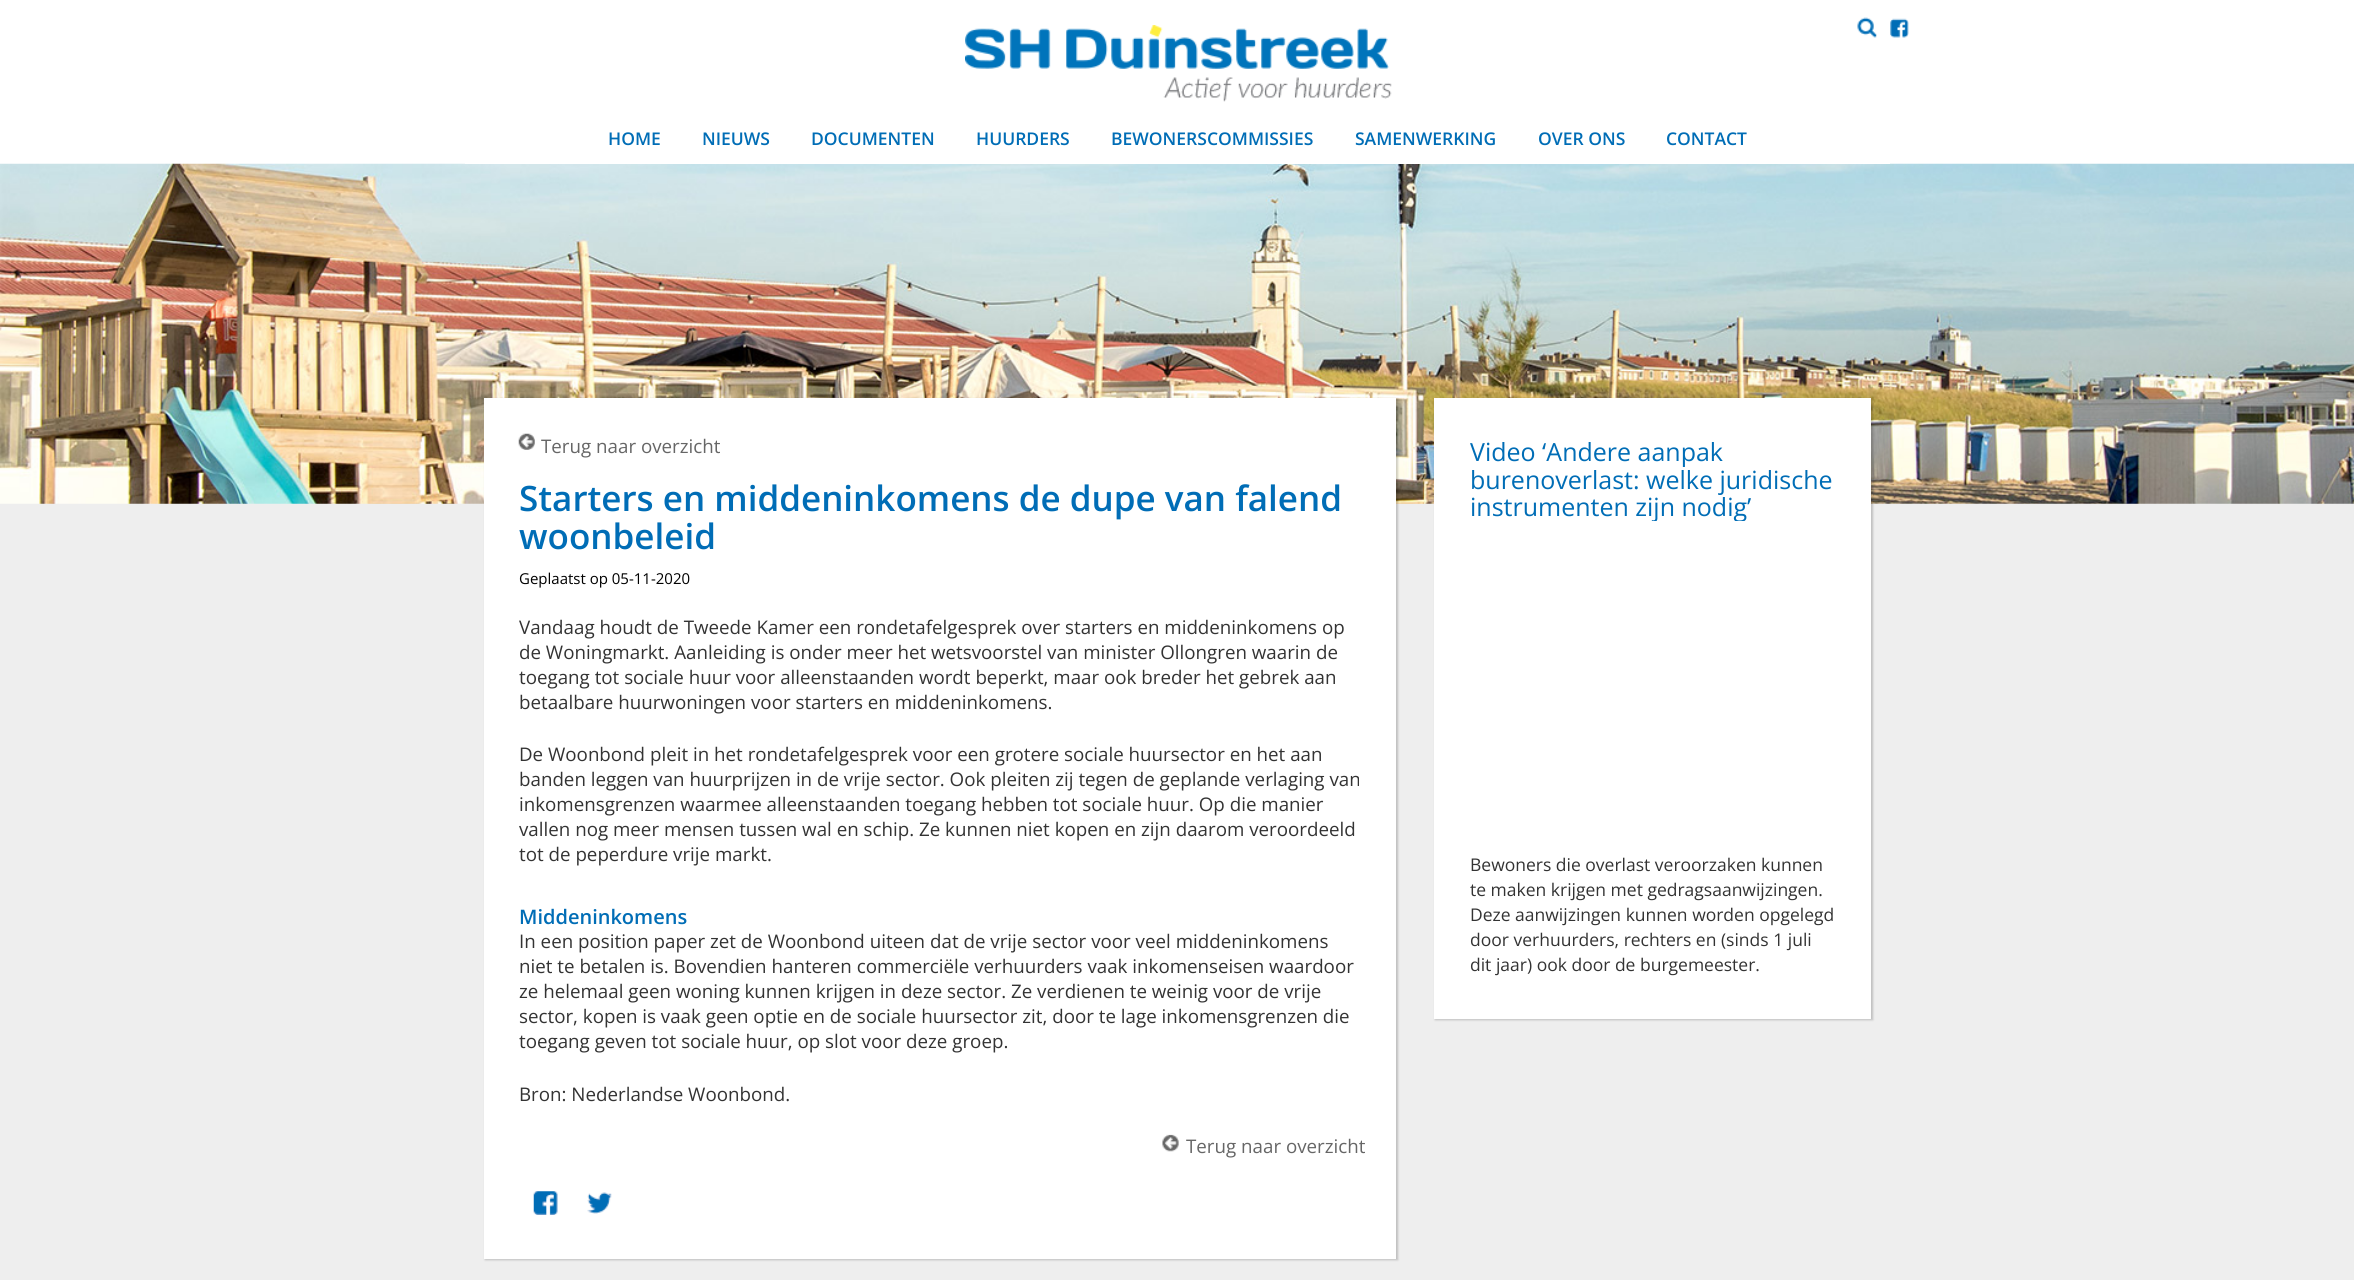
#include <cairo.h>
#include <math.h>
#include <stddef.h>

static cairo_t *ctx;

static void use_color(int r, int g, int b) {
    cairo_set_source_rgb(ctx, r / 255.0, g / 255.0, b / 255.0);
}

static void round_rect(double x, double y, double w, double h, double r) {
    cairo_new_sub_path(ctx);
    cairo_arc(ctx, x + w - r, y + h - r, r, 0, M_PI / 2);
    cairo_arc(ctx, x + r, y + h - r, r, M_PI / 2, M_PI);
    cairo_arc(ctx, x + r, y + r, r, M_PI, 1.5 * M_PI);
    cairo_arc(ctx, x + w - r, y + r, r, 1.5 * M_PI, 2 * M_PI);
    cairo_close_path(ctx);
}

static void shadow(double x, double y, double w, double h, double r, double blur, double alpha) {
    cairo_push_group_with_content(ctx, CAIRO_CONTENT_ALPHA);
    cairo_set_operator(ctx, CAIRO_OPERATOR_SOURCE);
    for (int i = 15; i >= -15 && fmin(w, h) + blur * i / 3 > 0; i -= 2) {
        double e = blur * i / 6;
        cairo_set_source_rgba(ctx, 0, 0, 0, alpha * erfc((i - 1) / 8.5) / 2);
        round_rect(x - e, y - e, w + 2 * e, h + 2 * e, fmax(0, fmin(r + e + blur * .6, fmin(w, h) / 2 + e)));
        cairo_fill(ctx);
    }
    cairo_pattern_t *soft = cairo_pop_group(ctx);
    cairo_mask(ctx, soft);
    cairo_pattern_destroy(soft);
}

static void picture(const char *path, double x, double y, double w, double h) {
    cairo_surface_t *image = cairo_image_surface_create_from_png(path);
    cairo_save(ctx);
    cairo_set_source_surface(ctx, image, x, y);
    cairo_rectangle(ctx, x, y, w, h);
    cairo_fill(ctx);
    cairo_restore(ctx);
    cairo_surface_destroy(image);
}

int main(void) {
    cairo_surface_t *surface = cairo_image_surface_create(CAIRO_FORMAT_RGB24, 2354, 1280);
    ctx = cairo_create(surface);
    cairo_font_options_t *options = cairo_font_options_create();
    cairo_font_options_set_hint_metrics(options, CAIRO_HINT_METRICS_OFF);
    cairo_font_options_set_hint_style(options, CAIRO_HINT_STYLE_NONE);
    cairo_set_font_options(ctx, options);
    cairo_set_miter_limit(ctx, 4);
    use_color(238, 238, 238);
    cairo_paint(ctx);
    use_color(255, 255, 255);
    cairo_rectangle(ctx, 0, 0, 2354, 164);
    cairo_fill(ctx);
    picture("img1.png", 965, 25, 427, 77);
    picture("img2.png", 1857, 17, 20, 21);
    picture("img3.png", 1890, 18, 19, 20);
    picture("img4.png", 0, 163, 2354, 341);
    cairo_rectangle(ctx, 465, 163, 1425, 1);
    cairo_fill(ctx);
    cairo_select_font_face(ctx, "Open Sans SemiBold", CAIRO_FONT_SLANT_NORMAL, CAIRO_FONT_WEIGHT_NORMAL);
    cairo_set_font_size(ctx, 17.5);
    use_color(0, 109, 182);
    cairo_move_to(ctx, 608, 145);
    cairo_show_text(ctx, "HOME");
    cairo_move_to(ctx, 702, 145);
    cairo_show_text(ctx, "NIEUWS");
    cairo_move_to(ctx, 811, 145);
    cairo_show_text(ctx, "DOCUMENTEN");
    cairo_move_to(ctx, 976, 145);
    cairo_show_text(ctx, "HUURDERS");
    cairo_move_to(ctx, 1111, 145);
    cairo_show_text(ctx, "BEWONERSCOMMISSIES");
    cairo_move_to(ctx, 1355, 145);
    cairo_show_text(ctx, "SAMENWERKING");
    cairo_move_to(ctx, 1538, 145);
    cairo_show_text(ctx, "OVER ONS");
    cairo_move_to(ctx, 1666, 145);
    cairo_show_text(ctx, "CONTACT");
    use_color(0, 0, 0);
    shadow(485, 399, 913, 861, 0, 1, 0.2);
    use_color(255, 255, 255);
    cairo_rectangle(ctx, 484, 398, 912, 861);
    cairo_fill(ctx);
    picture("img5.png", 518, 433, 17, 17);
    cairo_select_font_face(ctx, "Open Sans", CAIRO_FONT_SLANT_NORMAL, CAIRO_FONT_WEIGHT_NORMAL);
    cairo_set_font_size(ctx, 18.75);
    use_color(102, 102, 102);
    cairo_move_to(ctx, 541, 453);
    cairo_show_text(ctx, "Terug naar overzicht");
    cairo_select_font_face(ctx, "Open Sans SemiBold", CAIRO_FONT_SLANT_NORMAL, CAIRO_FONT_WEIGHT_NORMAL);
    cairo_set_font_size(ctx, 35);
    use_color(0, 109, 182);
    cairo_move_to(ctx, 519, 511);
    cairo_show_text(ctx, "Starters en middeninkomens de dupe van falend");
    cairo_move_to(ctx, 519, 549);
    cairo_show_text(ctx, "woonbeleid");
    cairo_select_font_face(ctx, "Open Sans", CAIRO_FONT_SLANT_NORMAL, CAIRO_FONT_WEIGHT_NORMAL);
    cairo_set_font_size(ctx, 15);
    use_color(0, 0, 0);
    cairo_move_to(ctx, 519, 584);
    cairo_show_text(ctx, "Geplaatst op 05-11-2020");
    cairo_set_font_size(ctx, 18.75);
    use_color(51, 51, 51);
    cairo_move_to(ctx, 519, 634);
    cairo_show_text(ctx, "Vandaag houdt de Tweede Kamer een rondetafelgesprek over starters en middeninkomens op");
    cairo_move_to(ctx, 519, 659);
    cairo_show_text(ctx, "de Woningmarkt. Aanleiding is onder meer het wetsvoorstel van minister Ollongren waarin de");
    cairo_move_to(ctx, 519, 684);
    cairo_show_text(ctx, "toegang tot sociale huur voor alleenstaanden wordt beperkt, maar ook breder het gebrek aan");
    cairo_move_to(ctx, 519, 709);
    cairo_show_text(ctx, "betaalbare huurwoningen voor starters en middeninkomens.");
    cairo_move_to(ctx, 519, 761);
    cairo_show_text(ctx, "De Woonbond pleit in het rondetafelgesprek voor een grotere sociale huursector en het aan");
    cairo_move_to(ctx, 519, 786);
    cairo_show_text(ctx, "banden leggen van huurprijzen in de vrije sector. Ook pleiten zij tegen de geplande verlaging van");
    cairo_move_to(ctx, 519, 811);
    cairo_show_text(ctx, "inkomensgrenzen waarmee alleenstaanden toegang hebben tot sociale huur. Op die manier");
    cairo_move_to(ctx, 519, 836);
    cairo_show_text(ctx, "vallen nog meer mensen tussen wal en schip. Ze kunnen niet kopen en zijn daarom veroordeeld");
    cairo_move_to(ctx, 519, 861);
    cairo_show_text(ctx, "tot de peperdure vrije markt.");
    cairo_select_font_face(ctx, "Open Sans SemiBold", CAIRO_FONT_SLANT_NORMAL, CAIRO_FONT_WEIGHT_NORMAL);
    cairo_set_font_size(ctx, 20);
    use_color(0, 109, 182);
    cairo_move_to(ctx, 519, 924);
    cairo_show_text(ctx, "Middeninkomens");
    cairo_select_font_face(ctx, "Open Sans", CAIRO_FONT_SLANT_NORMAL, CAIRO_FONT_WEIGHT_NORMAL);
    cairo_set_font_size(ctx, 18.75);
    use_color(51, 51, 51);
    cairo_move_to(ctx, 519, 948);
    cairo_show_text(ctx, "In een position paper zet de Woonbond uiteen dat de vrije sector voor veel middeninkomens");
    cairo_move_to(ctx, 519, 973);
    cairo_show_text(ctx, "niet te betalen is. Bovendien hanteren commerciële verhuurders vaak inkomenseisen waardoor");
    cairo_move_to(ctx, 519, 998);
    cairo_show_text(ctx, "ze helemaal geen woning kunnen krijgen in deze sector. Ze verdienen te weinig voor de vrije");
    cairo_move_to(ctx, 519, 1023);
    cairo_show_text(ctx, "sector, kopen is vaak geen optie en de sociale huursector zit, door te lage inkomensgrenzen die");
    cairo_move_to(ctx, 519, 1048);
    cairo_show_text(ctx, "toegang geven tot sociale huur, op slot voor deze groep.");
    cairo_move_to(ctx, 519, 1101);
    cairo_show_text(ctx, "Bron: Nederlandse Woonbond.");
    picture("img6.png", 1162, 1134, 17, 18);
    use_color(102, 102, 102);
    cairo_move_to(ctx, 1186, 1153);
    cairo_show_text(ctx, "Terug naar overzicht");
    picture("img7.png", 533, 1191, 25, 24);
    picture("img8.png", 587, 1192, 25, 22);
    use_color(0, 0, 0);
    shadow(1435, 399, 438, 621, 0, 1, 0.2);
    use_color(255, 255, 255);
    cairo_rectangle(ctx, 1434, 398, 437, 621);
    cairo_fill(ctx);
    cairo_set_font_size(ctx, 25);
    use_color(0, 109, 182);
    cairo_move_to(ctx, 1470, 461);
    cairo_show_text(ctx, "Video ‘Andere aanpak");
    cairo_move_to(ctx, 1470, 489);
    cairo_show_text(ctx, "burenoverlast: welke juridische");
    cairo_save(ctx);
    cairo_rectangle(ctx, 1470, 439, 365, 82);
    cairo_clip(ctx);
    cairo_move_to(ctx, 1470, 516);
    cairo_show_text(ctx, "instrumenten zijn nodig’");
    cairo_restore(ctx);
    cairo_set_font_size(ctx, 17.5);
    use_color(51, 51, 51);
    cairo_move_to(ctx, 1470, 871);
    cairo_show_text(ctx, "Bewoners die overlast veroorzaken kunnen");
    cairo_move_to(ctx, 1470, 896);
    cairo_show_text(ctx, "te maken krijgen met gedragsaanwijzingen.");
    cairo_move_to(ctx, 1470, 921);
    cairo_show_text(ctx, "Deze aanwijzingen kunnen worden opgelegd");
    cairo_move_to(ctx, 1470, 946);
    cairo_show_text(ctx, "door verhuurders, rechters en (sinds 1 juli");
    cairo_move_to(ctx, 1470, 971);
    cairo_show_text(ctx, "dit jaar) ook door de burgemeester.");
    cairo_surface_write_to_png(surface, "result.png");
    cairo_font_options_destroy(options);
    cairo_destroy(ctx);
    cairo_surface_destroy(surface);
    return 0;
}
